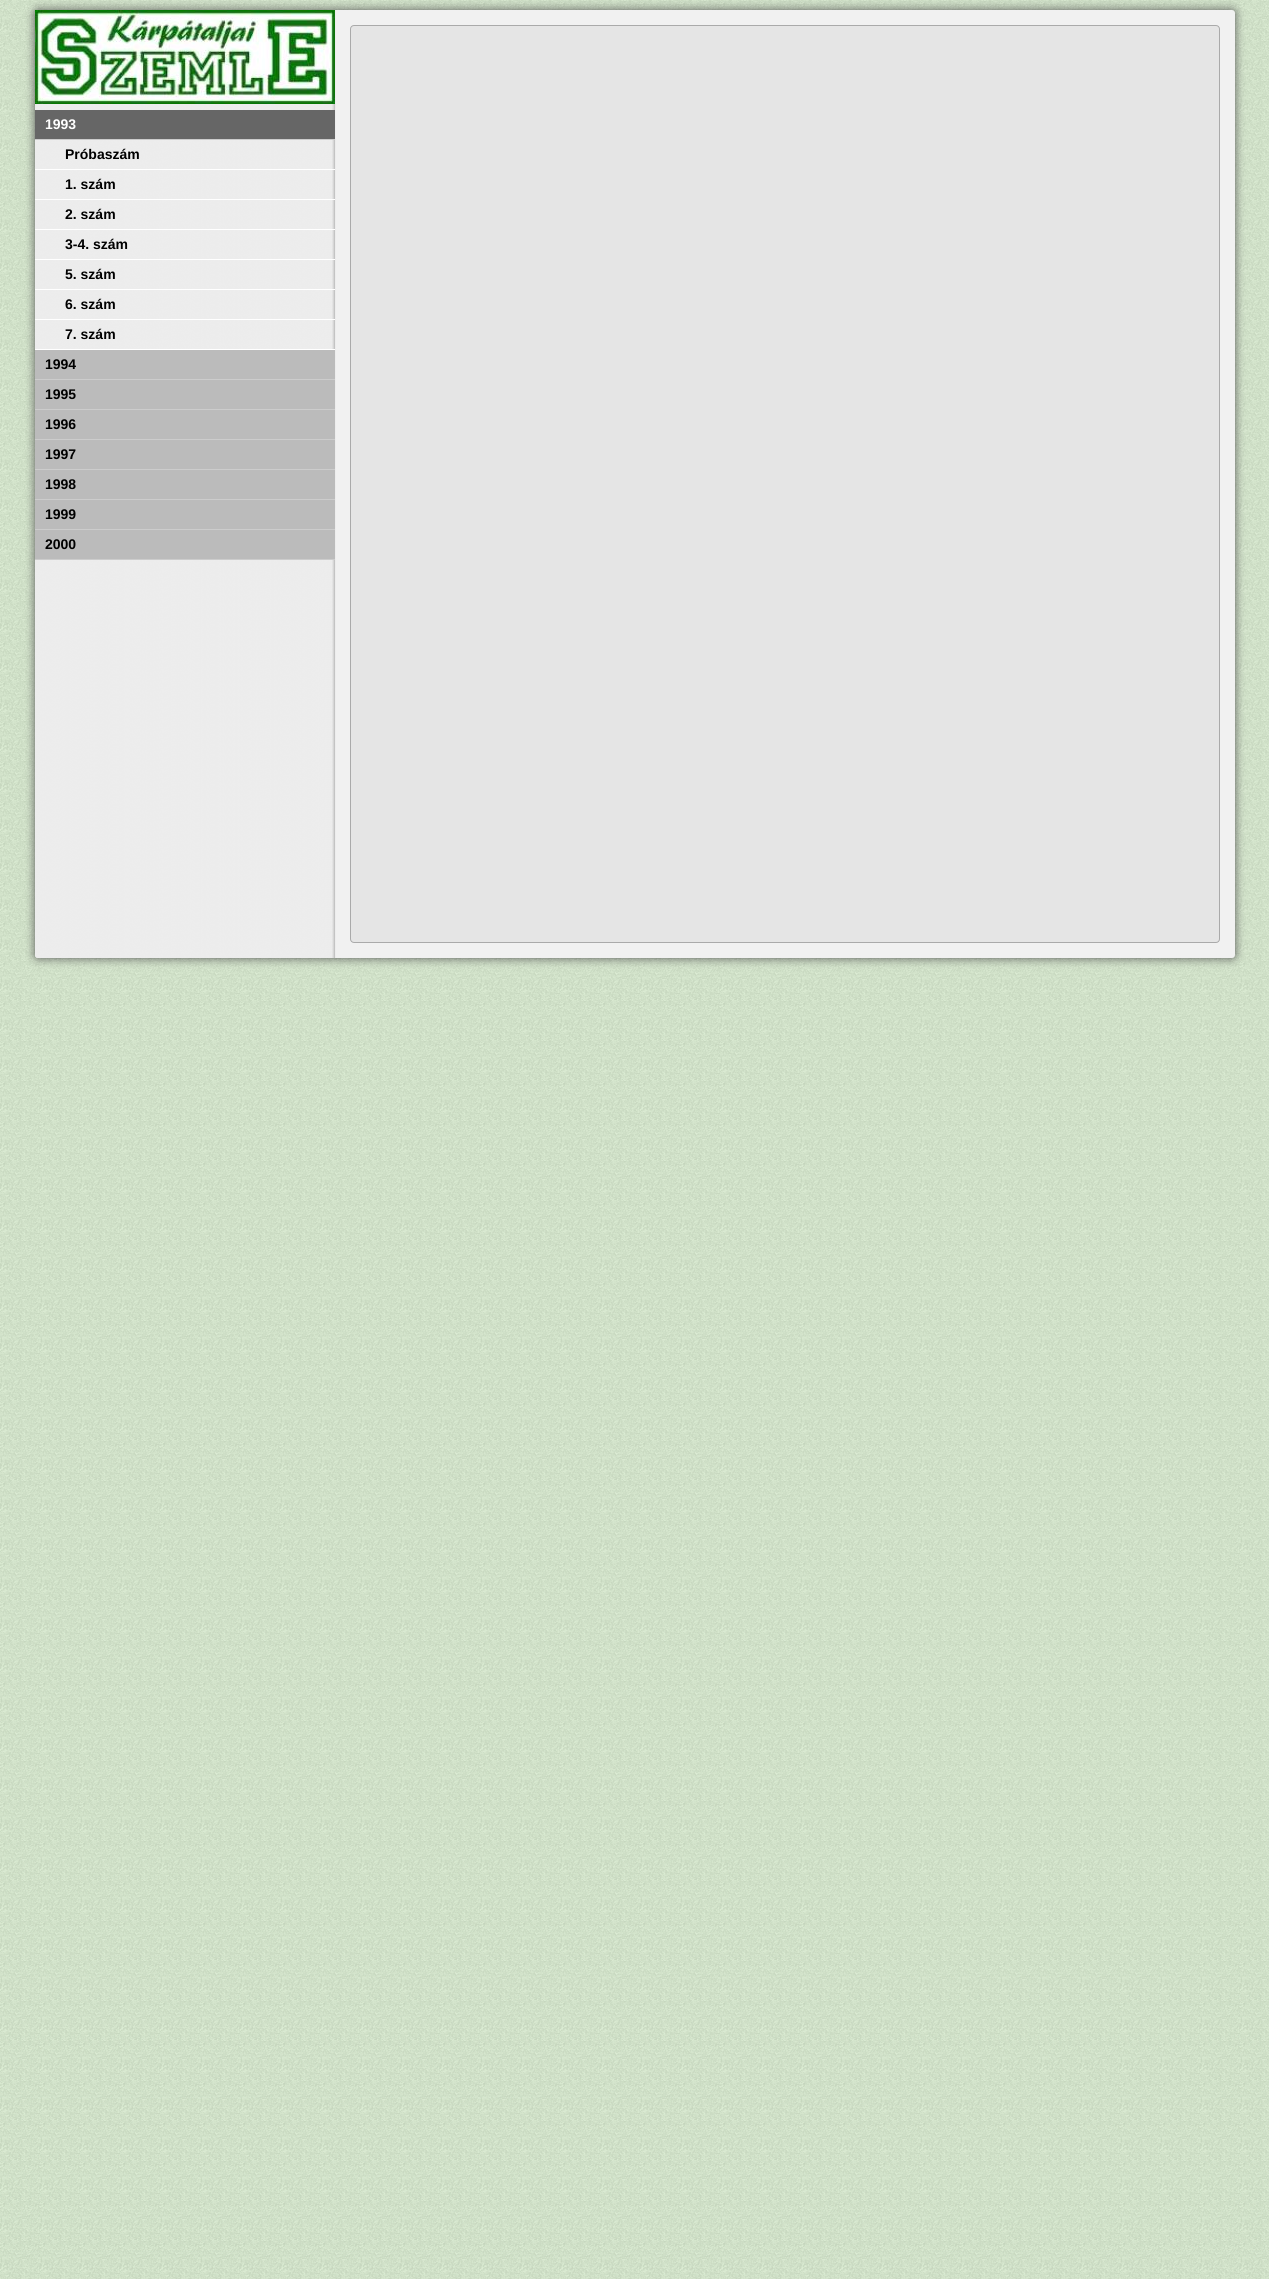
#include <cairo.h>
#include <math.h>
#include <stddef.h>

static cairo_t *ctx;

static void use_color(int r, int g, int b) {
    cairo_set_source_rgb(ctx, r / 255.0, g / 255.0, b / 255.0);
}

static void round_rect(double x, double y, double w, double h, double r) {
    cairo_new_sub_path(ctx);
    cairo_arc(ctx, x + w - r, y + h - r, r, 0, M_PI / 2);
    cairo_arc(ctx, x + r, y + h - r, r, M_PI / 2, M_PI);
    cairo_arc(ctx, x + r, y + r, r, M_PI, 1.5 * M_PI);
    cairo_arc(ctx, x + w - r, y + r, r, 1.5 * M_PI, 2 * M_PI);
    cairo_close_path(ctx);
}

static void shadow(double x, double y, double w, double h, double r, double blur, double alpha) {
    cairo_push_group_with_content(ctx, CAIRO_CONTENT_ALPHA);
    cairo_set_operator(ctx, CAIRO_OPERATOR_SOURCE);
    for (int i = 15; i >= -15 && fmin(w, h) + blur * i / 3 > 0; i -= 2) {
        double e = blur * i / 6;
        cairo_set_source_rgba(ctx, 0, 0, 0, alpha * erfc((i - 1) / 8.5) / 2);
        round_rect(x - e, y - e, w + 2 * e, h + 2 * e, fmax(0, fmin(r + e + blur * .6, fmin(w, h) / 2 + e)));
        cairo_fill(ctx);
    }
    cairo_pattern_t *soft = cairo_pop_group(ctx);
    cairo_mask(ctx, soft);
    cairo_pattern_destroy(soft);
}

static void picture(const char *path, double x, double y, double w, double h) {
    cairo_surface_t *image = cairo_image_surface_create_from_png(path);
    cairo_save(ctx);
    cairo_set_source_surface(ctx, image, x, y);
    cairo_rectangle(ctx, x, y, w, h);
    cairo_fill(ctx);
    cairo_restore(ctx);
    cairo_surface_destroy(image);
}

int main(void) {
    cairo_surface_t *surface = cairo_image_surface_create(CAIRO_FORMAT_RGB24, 1269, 2279);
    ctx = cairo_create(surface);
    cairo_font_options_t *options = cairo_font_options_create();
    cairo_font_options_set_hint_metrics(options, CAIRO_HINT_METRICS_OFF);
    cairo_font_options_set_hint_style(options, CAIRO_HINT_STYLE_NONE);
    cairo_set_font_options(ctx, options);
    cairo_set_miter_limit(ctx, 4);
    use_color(255, 255, 255);
    cairo_paint(ctx);
    picture("img1.png", 0, 0, 1269, 2279);
    use_color(85, 85, 85);
    shadow(35, 10, 1200, 948, 3, 5, 1);
    use_color(241, 241, 241);
    round_rect(35, 10, 1200, 948, 3);
    cairo_fill(ctx);
    picture("img2.png", 35, 10, 301, 948);
    picture("img3.png", 35, 10, 300, 94);
    use_color(102, 102, 102);
    cairo_rectangle(ctx, 35, 110, 300, 29);
    cairo_fill(ctx);
    use_color(204, 204, 204);
    cairo_rectangle(ctx, 35, 139, 300, 1);
    cairo_fill(ctx);
    cairo_select_font_face(ctx, "Liberation Sans", CAIRO_FONT_SLANT_NORMAL, CAIRO_FONT_WEIGHT_BOLD);
    cairo_set_font_size(ctx, 14);
    use_color(255, 255, 255);
    cairo_move_to(ctx, 45, 129);
    cairo_show_text(ctx, "1993");
    cairo_rectangle(ctx, 35, 169, 300, 1);
    cairo_fill(ctx);
    use_color(0, 0, 0);
    cairo_move_to(ctx, 65, 159);
    cairo_show_text(ctx, "Próbaszám");
    use_color(255, 255, 255);
    cairo_rectangle(ctx, 35, 199, 300, 1);
    cairo_fill(ctx);
    use_color(0, 0, 0);
    cairo_move_to(ctx, 65, 189);
    cairo_show_text(ctx, "1. szám");
    use_color(255, 255, 255);
    cairo_rectangle(ctx, 35, 229, 300, 1);
    cairo_fill(ctx);
    use_color(0, 0, 0);
    cairo_move_to(ctx, 65, 219);
    cairo_show_text(ctx, "2. szám");
    use_color(255, 255, 255);
    cairo_rectangle(ctx, 35, 259, 300, 1);
    cairo_fill(ctx);
    use_color(0, 0, 0);
    cairo_move_to(ctx, 65, 249);
    cairo_show_text(ctx, "3-4. szám");
    use_color(255, 255, 255);
    cairo_rectangle(ctx, 35, 289, 300, 1);
    cairo_fill(ctx);
    use_color(0, 0, 0);
    cairo_move_to(ctx, 65, 279);
    cairo_show_text(ctx, "5. szám");
    use_color(255, 255, 255);
    cairo_rectangle(ctx, 35, 319, 300, 1);
    cairo_fill(ctx);
    use_color(0, 0, 0);
    cairo_move_to(ctx, 65, 309);
    cairo_show_text(ctx, "6. szám");
    use_color(255, 255, 255);
    cairo_rectangle(ctx, 35, 349, 300, 1);
    cairo_fill(ctx);
    use_color(0, 0, 0);
    cairo_move_to(ctx, 65, 339);
    cairo_show_text(ctx, "7. szám");
    use_color(187, 187, 187);
    cairo_rectangle(ctx, 35, 350, 300, 29);
    cairo_fill(ctx);
    use_color(204, 204, 204);
    cairo_rectangle(ctx, 35, 379, 300, 1);
    cairo_fill(ctx);
    use_color(0, 0, 0);
    cairo_move_to(ctx, 45, 369);
    cairo_show_text(ctx, "1994");
    use_color(187, 187, 187);
    cairo_rectangle(ctx, 35, 380, 300, 29);
    cairo_fill(ctx);
    use_color(204, 204, 204);
    cairo_rectangle(ctx, 35, 409, 300, 1);
    cairo_fill(ctx);
    use_color(0, 0, 0);
    cairo_move_to(ctx, 45, 399);
    cairo_show_text(ctx, "1995");
    use_color(187, 187, 187);
    cairo_rectangle(ctx, 35, 410, 300, 29);
    cairo_fill(ctx);
    use_color(204, 204, 204);
    cairo_rectangle(ctx, 35, 439, 300, 1);
    cairo_fill(ctx);
    use_color(0, 0, 0);
    cairo_move_to(ctx, 45, 429);
    cairo_show_text(ctx, "1996");
    use_color(187, 187, 187);
    cairo_rectangle(ctx, 35, 440, 300, 29);
    cairo_fill(ctx);
    use_color(204, 204, 204);
    cairo_rectangle(ctx, 35, 469, 300, 1);
    cairo_fill(ctx);
    use_color(0, 0, 0);
    cairo_move_to(ctx, 45, 459);
    cairo_show_text(ctx, "1997");
    use_color(187, 187, 187);
    cairo_rectangle(ctx, 35, 470, 300, 29);
    cairo_fill(ctx);
    use_color(204, 204, 204);
    cairo_rectangle(ctx, 35, 499, 300, 1);
    cairo_fill(ctx);
    use_color(0, 0, 0);
    cairo_move_to(ctx, 45, 489);
    cairo_show_text(ctx, "1998");
    use_color(187, 187, 187);
    cairo_rectangle(ctx, 35, 500, 300, 29);
    cairo_fill(ctx);
    use_color(204, 204, 204);
    cairo_rectangle(ctx, 35, 529, 300, 1);
    cairo_fill(ctx);
    use_color(0, 0, 0);
    cairo_move_to(ctx, 45, 519);
    cairo_show_text(ctx, "1999");
    use_color(187, 187, 187);
    cairo_rectangle(ctx, 35, 530, 300, 29);
    cairo_fill(ctx);
    use_color(204, 204, 204);
    cairo_rectangle(ctx, 35, 559, 300, 1);
    cairo_fill(ctx);
    use_color(0, 0, 0);
    cairo_move_to(ctx, 45, 549);
    cairo_show_text(ctx, "2000");
    use_color(229, 229, 229);
    round_rect(350.5, 25.5, 869, 917, 3.5);
    cairo_fill_preserve(ctx);
    use_color(170, 170, 170);
    cairo_set_line_width(ctx, 1);
    cairo_stroke(ctx);
    cairo_surface_write_to_png(surface, "result.png");
    cairo_font_options_destroy(options);
    cairo_destroy(ctx);
    cairo_surface_destroy(surface);
    return 0;
}
